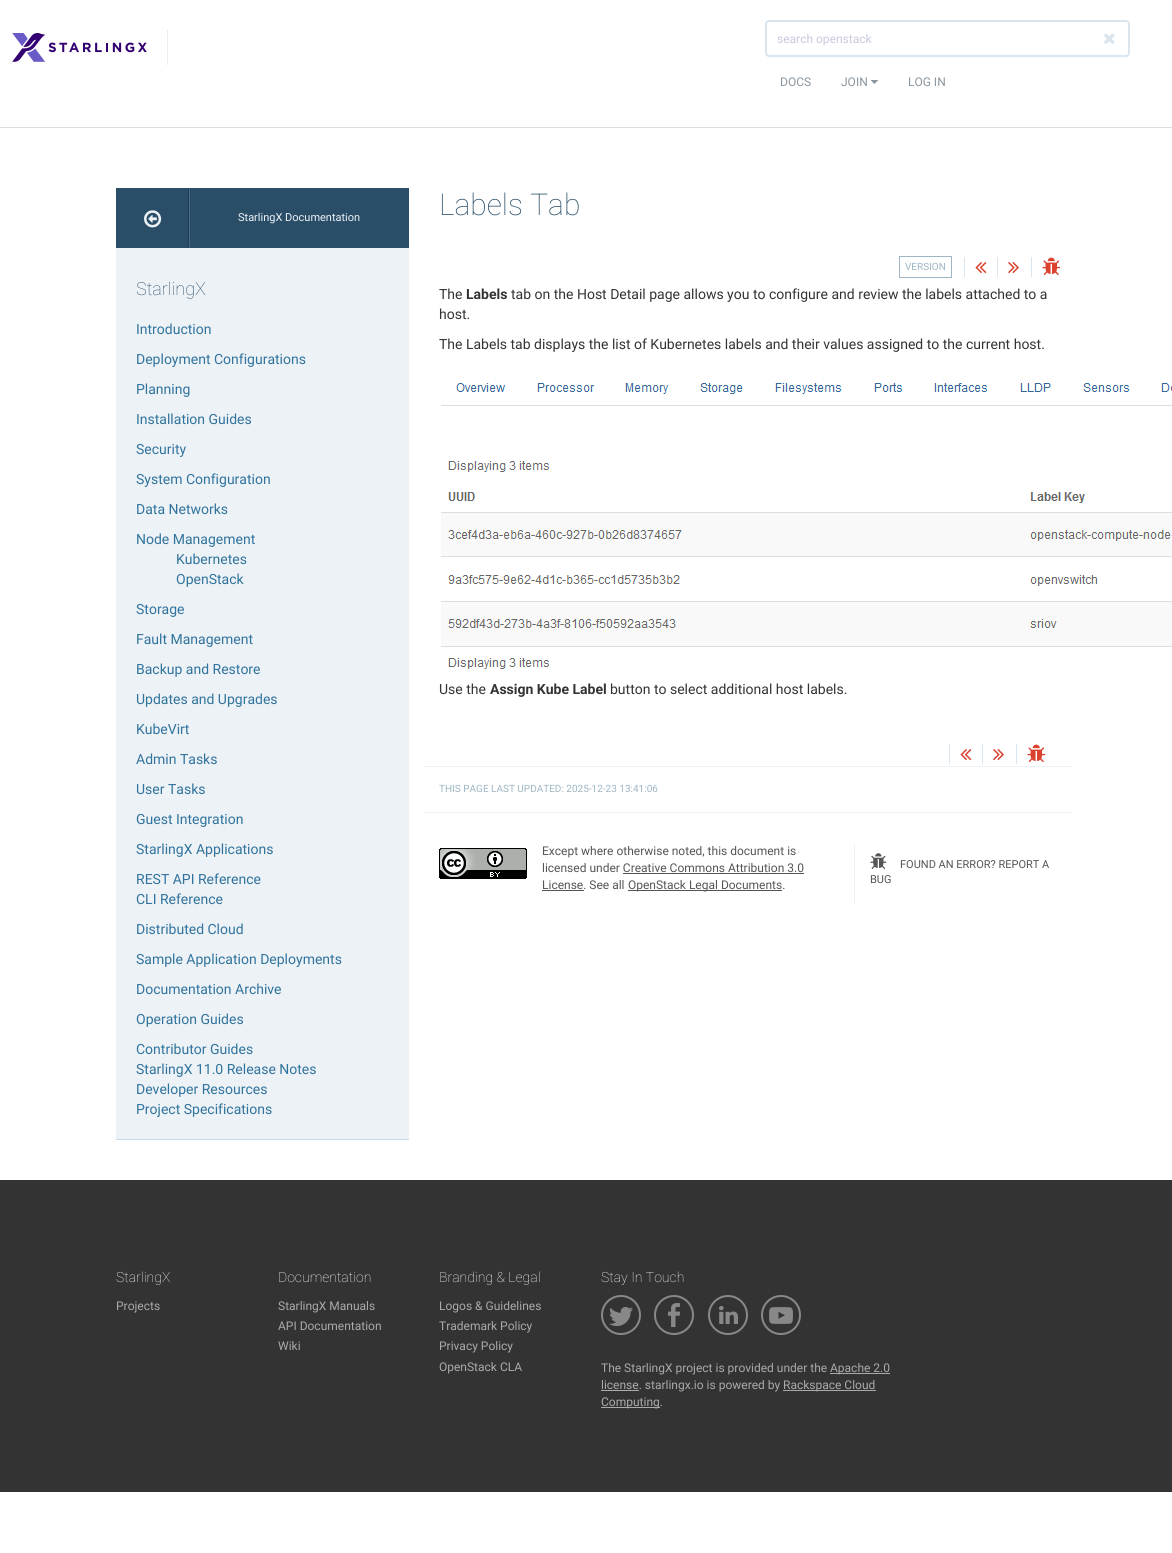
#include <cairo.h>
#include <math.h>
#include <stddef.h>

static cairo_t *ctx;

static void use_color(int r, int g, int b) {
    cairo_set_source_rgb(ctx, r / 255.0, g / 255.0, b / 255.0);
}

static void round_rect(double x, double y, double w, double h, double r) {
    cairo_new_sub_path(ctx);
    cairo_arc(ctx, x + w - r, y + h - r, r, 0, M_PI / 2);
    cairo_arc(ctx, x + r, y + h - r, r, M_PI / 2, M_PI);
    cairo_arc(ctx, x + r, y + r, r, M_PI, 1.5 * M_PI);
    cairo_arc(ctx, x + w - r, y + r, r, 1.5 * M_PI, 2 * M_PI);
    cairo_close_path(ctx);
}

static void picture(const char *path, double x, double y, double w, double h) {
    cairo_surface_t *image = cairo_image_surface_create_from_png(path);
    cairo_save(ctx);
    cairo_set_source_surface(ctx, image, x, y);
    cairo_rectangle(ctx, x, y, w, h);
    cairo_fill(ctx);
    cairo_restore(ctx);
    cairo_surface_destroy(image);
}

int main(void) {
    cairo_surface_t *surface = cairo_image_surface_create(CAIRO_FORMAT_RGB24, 1172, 1553);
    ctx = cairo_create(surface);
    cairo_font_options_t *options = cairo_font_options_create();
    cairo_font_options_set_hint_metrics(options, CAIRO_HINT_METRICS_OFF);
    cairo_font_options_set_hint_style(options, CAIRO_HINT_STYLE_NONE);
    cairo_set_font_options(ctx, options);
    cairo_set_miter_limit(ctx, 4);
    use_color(255, 255, 255);
    cairo_paint(ctx);
    use_color(221, 221, 221);
    cairo_rectangle(ctx, 0, 127, 1172, 1);
    cairo_fill(ctx);
    use_color(238, 238, 238);
    cairo_rectangle(ctx, 167, 30, 1, 35);
    cairo_fill(ctx);
    picture("img1.png", 12, 33, 135, 29);
    round_rect(766, 21, 363, 35, 3);
    use_color(218, 229, 238);
    cairo_stroke(ctx);
    cairo_select_font_face(ctx, "Roboto", CAIRO_FONT_SLANT_NORMAL, CAIRO_FONT_WEIGHT_NORMAL);
    cairo_set_font_size(ctx, 12);
    use_color(199, 202, 224);
    cairo_move_to(ctx, 777, 43);
    cairo_show_text(ctx, "search openstack");
    picture("img2.png", 1104, 33, 11, 11);
    use_color(138, 149, 158);
    cairo_move_to(ctx, 780, 86);
    cairo_show_text(ctx, "DOCS");
    cairo_move_to(ctx, 841, 86);
    cairo_show_text(ctx, "JOIN");
    picture("img3.png", 871, 80, 7, 4);
    cairo_move_to(ctx, 908, 86);
    cairo_show_text(ctx, "LOG IN");
    use_color(42, 78, 104);
    cairo_rectangle(ctx, 116, 188, 293, 60);
    cairo_fill(ctx);
    use_color(28, 59, 83);
    cairo_new_path(ctx);
    cairo_move_to(ctx, 189, 188);
    cairo_line_to(ctx, 189, 248);
    cairo_line_to(ctx, 188, 247);
    cairo_line_to(ctx, 188, 189);
    cairo_close_path(ctx);
    cairo_fill(ctx);
    picture("img4.png", 144, 210, 18, 18);
    use_color(73, 110, 138);
    cairo_new_path(ctx);
    cairo_move_to(ctx, 189, 248);
    cairo_line_to(ctx, 189, 188);
    cairo_line_to(ctx, 190, 189);
    cairo_line_to(ctx, 190, 247);
    cairo_close_path(ctx);
    cairo_fill(ctx);
    cairo_set_font_size(ctx, 11);
    use_color(237, 242, 247);
    cairo_move_to(ctx, 238, 221);
    cairo_show_text(ctx, "StarlingX Documentation");
    cairo_rectangle(ctx, 116, 248, 293, 891);
    cairo_fill(ctx);
    use_color(200, 216, 229);
    cairo_rectangle(ctx, 116, 1139, 293, 1);
    cairo_fill(ctx);
    cairo_select_font_face(ctx, "Roboto Thin", CAIRO_FONT_SLANT_NORMAL, CAIRO_FONT_WEIGHT_NORMAL);
    cairo_set_font_size(ctx, 18);
    use_color(42, 78, 104);
    cairo_move_to(ctx, 136, 295);
    cairo_show_text(ctx, "StarlingX");
    cairo_select_font_face(ctx, "Roboto", CAIRO_FONT_SLANT_NORMAL, CAIRO_FONT_WEIGHT_NORMAL);
    cairo_set_font_size(ctx, 14);
    use_color(48, 115, 156);
    cairo_move_to(ctx, 136, 334);
    cairo_show_text(ctx, "Introduction");
    cairo_move_to(ctx, 136, 364);
    cairo_show_text(ctx, "Deployment Configurations");
    cairo_move_to(ctx, 136, 394);
    cairo_show_text(ctx, "Planning");
    cairo_move_to(ctx, 136, 424);
    cairo_show_text(ctx, "Installation Guides");
    cairo_move_to(ctx, 136, 454);
    cairo_show_text(ctx, "Security");
    cairo_move_to(ctx, 136, 484);
    cairo_show_text(ctx, "System Configuration");
    cairo_move_to(ctx, 136, 514);
    cairo_show_text(ctx, "Data Networks");
    cairo_move_to(ctx, 136, 544);
    cairo_show_text(ctx, "Node Management");
    cairo_move_to(ctx, 176, 564);
    cairo_show_text(ctx, "Kubernetes");
    cairo_move_to(ctx, 176, 584);
    cairo_show_text(ctx, "OpenStack");
    cairo_move_to(ctx, 136, 614);
    cairo_show_text(ctx, "Storage");
    cairo_move_to(ctx, 136, 644);
    cairo_show_text(ctx, "Fault Management");
    cairo_move_to(ctx, 136, 674);
    cairo_show_text(ctx, "Backup and Restore");
    cairo_move_to(ctx, 136, 704);
    cairo_show_text(ctx, "Updates and Upgrades");
    cairo_move_to(ctx, 136, 734);
    cairo_show_text(ctx, "KubeVirt");
    cairo_move_to(ctx, 136, 764);
    cairo_show_text(ctx, "Admin Tasks");
    cairo_move_to(ctx, 136, 794);
    cairo_show_text(ctx, "User Tasks");
    cairo_move_to(ctx, 136, 824);
    cairo_show_text(ctx, "Guest Integration");
    cairo_move_to(ctx, 136, 854);
    cairo_show_text(ctx, "StarlingX Applications");
    cairo_move_to(ctx, 136, 884);
    cairo_show_text(ctx, "REST API Reference");
    cairo_move_to(ctx, 136, 904);
    cairo_show_text(ctx, "CLI Reference");
    cairo_move_to(ctx, 136, 934);
    cairo_show_text(ctx, "Distributed Cloud");
    cairo_move_to(ctx, 136, 964);
    cairo_show_text(ctx, "Sample Application Deployments");
    cairo_move_to(ctx, 136, 994);
    cairo_show_text(ctx, "Documentation Archive");
    cairo_move_to(ctx, 136, 1024);
    cairo_show_text(ctx, "Operation Guides");
    cairo_move_to(ctx, 136, 1054);
    cairo_show_text(ctx, "Contributor Guides");
    cairo_move_to(ctx, 136, 1074);
    cairo_show_text(ctx, "StarlingX 11.0 Release Notes");
    cairo_move_to(ctx, 136, 1094);
    cairo_show_text(ctx, "Developer Resources");
    cairo_move_to(ctx, 136, 1114);
    cairo_show_text(ctx, "Project Specifications");
    cairo_select_font_face(ctx, "Roboto Thin", CAIRO_FONT_SLANT_NORMAL, CAIRO_FONT_WEIGHT_NORMAL);
    cairo_set_font_size(ctx, 30);
    use_color(42, 78, 104);
    cairo_move_to(ctx, 439, 215);
    cairo_show_text(ctx, "Labels Tab");
    cairo_rectangle(ctx, 899.5, 256.5, 52, 21);
    use_color(158, 181, 195);
    cairo_set_line_width(ctx, 1);
    cairo_stroke(ctx);
    cairo_select_font_face(ctx, "Roboto", CAIRO_FONT_SLANT_NORMAL, CAIRO_FONT_WEIGHT_NORMAL);
    cairo_set_font_size(ctx, 10);
    cairo_move_to(ctx, 905, 270);
    cairo_show_text(ctx, "VERSION");
    use_color(218, 229, 238);
    cairo_rectangle(ctx, 964, 257, 1, 20);
    cairo_fill(ctx);
    picture("img5.png", 975, 262, 12, 12);
    cairo_rectangle(ctx, 997, 257, 1, 20);
    cairo_fill(ctx);
    picture("img6.png", 1008, 262, 11, 12);
    cairo_rectangle(ctx, 1031, 257, 1, 20);
    cairo_fill(ctx);
    picture("img7.png", 1042, 257, 19, 18);
    cairo_set_font_size(ctx, 14);
    use_color(51, 51, 51);
    cairo_move_to(ctx, 439, 299);
    cairo_show_text(ctx, "The");
    cairo_select_font_face(ctx, "Roboto", CAIRO_FONT_SLANT_NORMAL, CAIRO_FONT_WEIGHT_BOLD);
    cairo_move_to(ctx, 466, 299);
    cairo_show_text(ctx, "Labels");
    cairo_select_font_face(ctx, "Roboto", CAIRO_FONT_SLANT_NORMAL, CAIRO_FONT_WEIGHT_NORMAL);
    cairo_move_to(ctx, 511, 299);
    cairo_show_text(ctx, "tab on the Host Detail page allows you to configure and review the labels attached to a");
    cairo_move_to(ctx, 439, 319);
    cairo_show_text(ctx, "host.");
    cairo_move_to(ctx, 439, 349);
    cairo_show_text(ctx, "The Labels tab displays the list of Kubernetes labels and their values assigned to the current host.");
    picture("img8.png", 441, 383, 731, 286);
    cairo_move_to(ctx, 439, 694);
    cairo_show_text(ctx, "Use the");
    cairo_select_font_face(ctx, "Roboto", CAIRO_FONT_SLANT_NORMAL, CAIRO_FONT_WEIGHT_BOLD);
    cairo_move_to(ctx, 490, 694);
    cairo_show_text(ctx, "Assign Kube Label");
    cairo_select_font_face(ctx, "Roboto", CAIRO_FONT_SLANT_NORMAL, CAIRO_FONT_WEIGHT_NORMAL);
    cairo_move_to(ctx, 610, 694);
    cairo_show_text(ctx, "button to select additional host labels.");
    use_color(218, 229, 238);
    cairo_rectangle(ctx, 949, 744, 1, 20);
    cairo_fill(ctx);
    picture("img5.png", 960, 749, 12, 12);
    cairo_rectangle(ctx, 982, 744, 1, 20);
    cairo_fill(ctx);
    picture("img6.png", 993, 749, 11, 12);
    cairo_rectangle(ctx, 1016, 744, 1, 20);
    cairo_fill(ctx);
    picture("img7.png", 1027, 744, 19, 18);
    use_color(237, 242, 247);
    cairo_rectangle(ctx, 424, 766, 647, 1);
    cairo_fill(ctx);
    cairo_rectangle(ctx, 424, 812, 647, 1);
    cairo_fill(ctx);
    cairo_set_font_size(ctx, 10);
    use_color(158, 181, 195);
    cairo_move_to(ctx, 439, 792);
    cairo_show_text(ctx, "THIS PAGE LAST UPDATED: 2025-12-23 13:41:06");
    use_color(237, 242, 247);
    cairo_rectangle(ctx, 854, 843, 1, 61);
    cairo_fill(ctx);
    picture("img9.png", 439, 848, 88, 31);
    cairo_set_font_size(ctx, 12);
    use_color(85, 85, 85);
    cairo_move_to(ctx, 542, 855);
    cairo_show_text(ctx, "Except where otherwise noted, this document is");
    cairo_move_to(ctx, 542, 872);
    cairo_show_text(ctx, "licensed under Creative Commons Attribution 3.0");
    cairo_move_to(ctx, 542, 889);
    cairo_show_text(ctx, "License. See all");
    cairo_rectangle(ctx, 623, 873, 181, 1);
    cairo_fill(ctx);
    cairo_rectangle(ctx, 542, 890, 42, 1);
    cairo_fill(ctx);
    cairo_rectangle(ctx, 628, 890, 154, 1);
    cairo_fill(ctx);
    cairo_move_to(ctx, 628, 889);
    cairo_show_text(ctx, "OpenStack Legal Documents.");
    picture("img10.png", 870, 853, 17, 16);
    cairo_set_font_size(ctx, 11);
    cairo_move_to(ctx, 900, 868);
    cairo_show_text(ctx, "FOUND AN ERROR? REPORT A");
    cairo_move_to(ctx, 870, 883);
    cairo_show_text(ctx, "BUG");
    use_color(51, 51, 51);
    cairo_rectangle(ctx, 0, 1180, 1172, 312);
    cairo_fill(ctx);
    cairo_select_font_face(ctx, "Roboto Thin", CAIRO_FONT_SLANT_NORMAL, CAIRO_FONT_WEIGHT_NORMAL);
    cairo_set_font_size(ctx, 14);
    use_color(255, 255, 255);
    cairo_move_to(ctx, 116, 1282);
    cairo_show_text(ctx, "StarlingX");
    cairo_select_font_face(ctx, "Roboto", CAIRO_FONT_SLANT_NORMAL, CAIRO_FONT_WEIGHT_NORMAL);
    cairo_set_font_size(ctx, 12);
    use_color(170, 170, 170);
    cairo_move_to(ctx, 116, 1310);
    cairo_show_text(ctx, "Projects");
    cairo_select_font_face(ctx, "Roboto Thin", CAIRO_FONT_SLANT_NORMAL, CAIRO_FONT_WEIGHT_NORMAL);
    cairo_set_font_size(ctx, 14);
    use_color(255, 255, 255);
    cairo_move_to(ctx, 278, 1282);
    cairo_show_text(ctx, "Documentation");
    cairo_select_font_face(ctx, "Roboto", CAIRO_FONT_SLANT_NORMAL, CAIRO_FONT_WEIGHT_NORMAL);
    cairo_set_font_size(ctx, 12);
    use_color(170, 170, 170);
    cairo_move_to(ctx, 278, 1310);
    cairo_show_text(ctx, "StarlingX Manuals");
    cairo_move_to(ctx, 278, 1330);
    cairo_show_text(ctx, "API Documentation");
    cairo_move_to(ctx, 278, 1350);
    cairo_show_text(ctx, "Wiki");
    cairo_select_font_face(ctx, "Roboto Thin", CAIRO_FONT_SLANT_NORMAL, CAIRO_FONT_WEIGHT_NORMAL);
    cairo_set_font_size(ctx, 14);
    use_color(255, 255, 255);
    cairo_move_to(ctx, 439, 1282);
    cairo_show_text(ctx, "Branding & Legal");
    cairo_select_font_face(ctx, "Roboto", CAIRO_FONT_SLANT_NORMAL, CAIRO_FONT_WEIGHT_NORMAL);
    cairo_set_font_size(ctx, 12);
    use_color(170, 170, 170);
    cairo_move_to(ctx, 439, 1310);
    cairo_show_text(ctx, "Logos & Guidelines");
    cairo_move_to(ctx, 439, 1330);
    cairo_show_text(ctx, "Trademark Policy");
    cairo_move_to(ctx, 439, 1350);
    cairo_show_text(ctx, "Privacy Policy");
    cairo_move_to(ctx, 439, 1371);
    cairo_show_text(ctx, "OpenStack CLA");
    cairo_select_font_face(ctx, "Roboto Thin", CAIRO_FONT_SLANT_NORMAL, CAIRO_FONT_WEIGHT_NORMAL);
    cairo_set_font_size(ctx, 14);
    use_color(255, 255, 255);
    cairo_move_to(ctx, 601, 1282);
    cairo_show_text(ctx, "Stay In Touch");
    picture("img11.png", 601, 1295, 40, 40);
    picture("img12.png", 654, 1295, 40, 40);
    picture("img13.png", 708, 1295, 40, 40);
    picture("img14.png", 761, 1295, 40, 40);
    cairo_select_font_face(ctx, "Roboto", CAIRO_FONT_SLANT_NORMAL, CAIRO_FONT_WEIGHT_NORMAL);
    cairo_set_font_size(ctx, 12);
    use_color(170, 170, 170);
    cairo_move_to(ctx, 601, 1372);
    cairo_show_text(ctx, "The StarlingX project is provided under the");
    cairo_rectangle(ctx, 830, 1373, 60, 1);
    cairo_fill(ctx);
    cairo_move_to(ctx, 830, 1372);
    cairo_show_text(ctx, "Apache 2.0");
    cairo_rectangle(ctx, 601, 1390, 38, 1);
    cairo_fill(ctx);
    cairo_move_to(ctx, 601, 1389);
    cairo_show_text(ctx, "license. starlingx.io is powered by");
    cairo_rectangle(ctx, 783, 1390, 93, 1);
    cairo_fill(ctx);
    cairo_move_to(ctx, 783, 1389);
    cairo_show_text(ctx, "Rackspace Cloud");
    cairo_rectangle(ctx, 601, 1407, 59, 1);
    cairo_fill(ctx);
    cairo_move_to(ctx, 601, 1406);
    cairo_show_text(ctx, "Computing.");
    cairo_surface_write_to_png(surface, "result.png");
    cairo_font_options_destroy(options);
    cairo_destroy(ctx);
    cairo_surface_destroy(surface);
    return 0;
}
